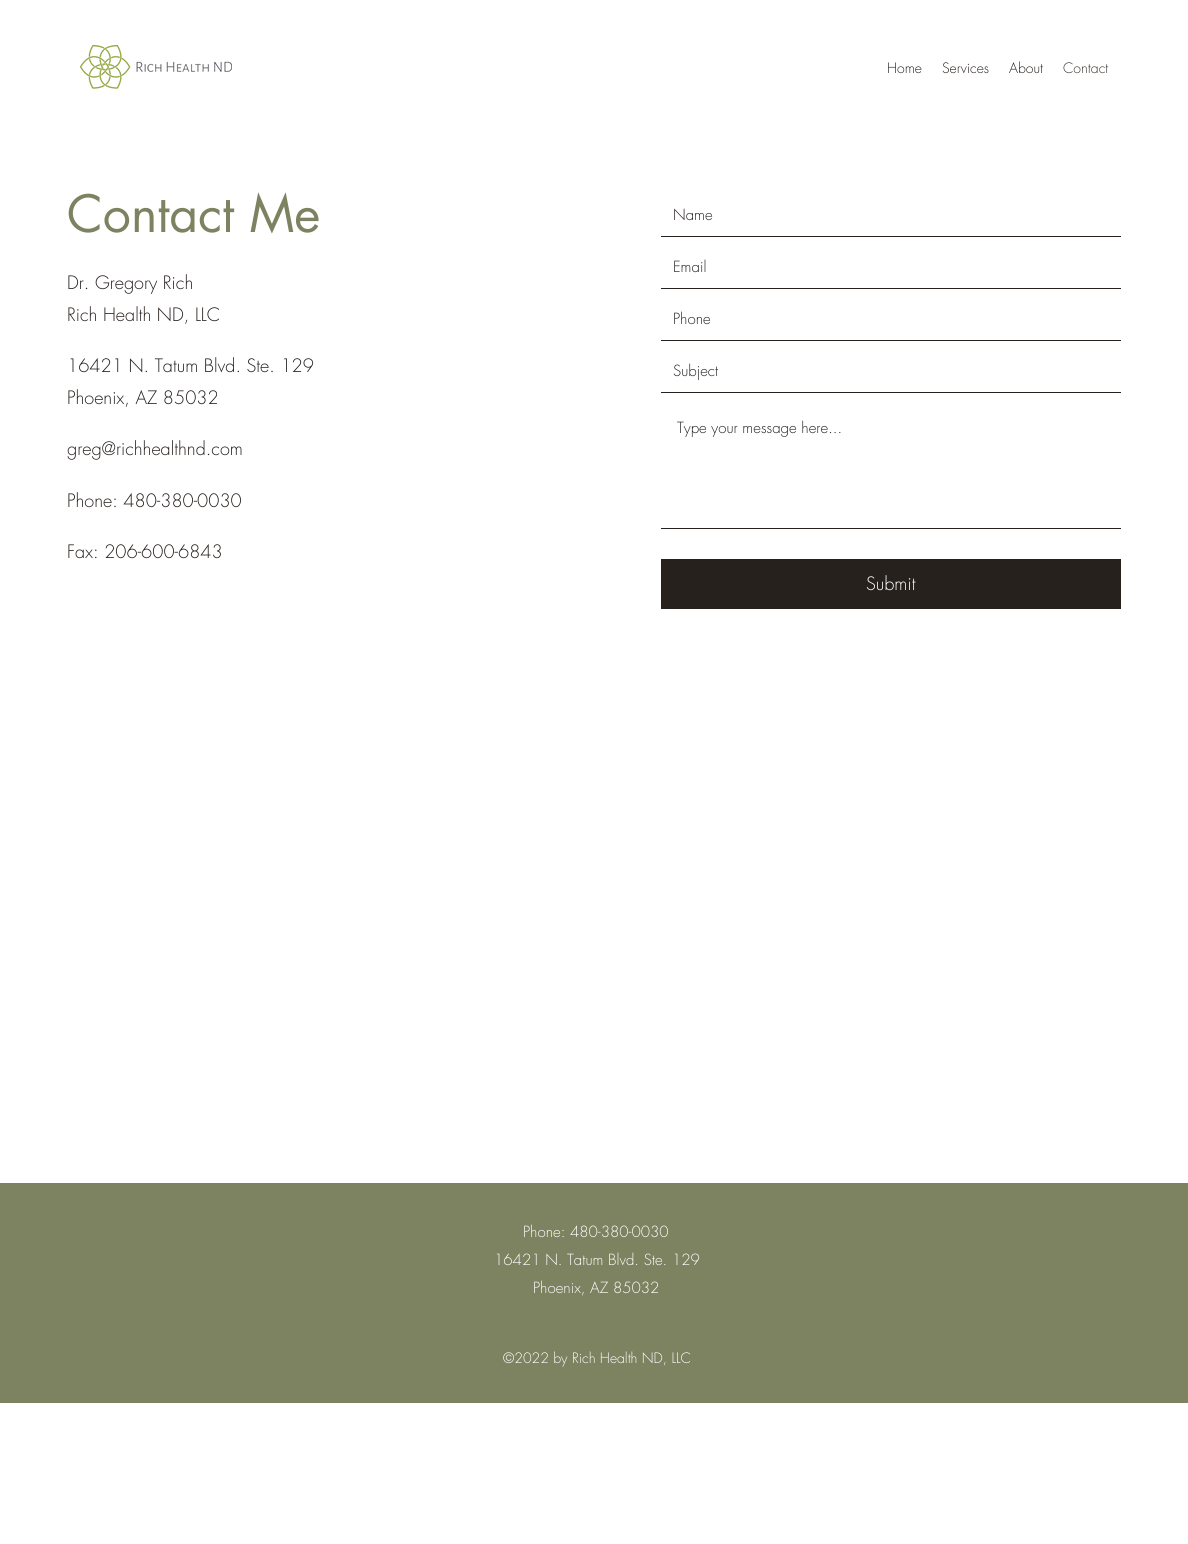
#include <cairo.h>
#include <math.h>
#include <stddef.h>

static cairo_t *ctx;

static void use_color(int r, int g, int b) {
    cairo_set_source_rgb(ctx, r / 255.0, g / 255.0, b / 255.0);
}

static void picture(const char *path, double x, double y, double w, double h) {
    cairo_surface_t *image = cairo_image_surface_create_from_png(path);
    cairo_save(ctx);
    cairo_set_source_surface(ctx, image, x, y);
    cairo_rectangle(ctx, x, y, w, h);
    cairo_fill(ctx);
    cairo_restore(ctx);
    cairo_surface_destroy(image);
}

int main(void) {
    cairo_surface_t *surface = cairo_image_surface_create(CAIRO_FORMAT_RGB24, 1188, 1544);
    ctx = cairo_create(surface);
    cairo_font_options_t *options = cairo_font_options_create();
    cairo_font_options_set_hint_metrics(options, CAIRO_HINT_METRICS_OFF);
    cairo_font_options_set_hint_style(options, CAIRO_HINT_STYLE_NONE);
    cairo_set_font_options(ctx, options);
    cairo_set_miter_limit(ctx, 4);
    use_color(255, 255, 255);
    cairo_paint(ctx);
    picture("img1.png", 80, 45, 152, 44);
    cairo_select_font_face(ctx, "futura Light", CAIRO_FONT_SLANT_NORMAL, CAIRO_FONT_WEIGHT_NORMAL);
    cairo_set_font_size(ctx, 14);
    use_color(39, 33, 30);
    cairo_move_to(ctx, 887, 73);
    cairo_show_text(ctx, "Home");
    cairo_move_to(ctx, 942, 73);
    cairo_show_text(ctx, "Services");
    cairo_move_to(ctx, 1009, 73);
    cairo_show_text(ctx, "About");
    use_color(61, 52, 47);
    cairo_move_to(ctx, 1063, 73);
    cairo_show_text(ctx, "Contact");
    cairo_select_font_face(ctx, "futura", CAIRO_FONT_SLANT_NORMAL, CAIRO_FONT_WEIGHT_NORMAL);
    cairo_set_font_size(ctx, 50);
    use_color(125, 130, 96);
    cairo_move_to(ctx, 67, 232);
    cairo_show_text(ctx, "Contact Me");
    cairo_select_font_face(ctx, "futura Light", CAIRO_FONT_SLANT_NORMAL, CAIRO_FONT_WEIGHT_NORMAL);
    cairo_set_font_size(ctx, 18);
    use_color(39, 33, 30);
    cairo_move_to(ctx, 67, 289);
    cairo_show_text(ctx, "Dr. Gregory Rich");
    cairo_move_to(ctx, 67, 321);
    cairo_show_text(ctx, "Rich Health ND, LLC");
    cairo_move_to(ctx, 67, 372);
    cairo_show_text(ctx, "16421 N. Tatum Blvd. Ste. 129");
    cairo_move_to(ctx, 67, 404);
    cairo_show_text(ctx, "Phoenix, AZ 85032");
    cairo_move_to(ctx, 67, 455);
    cairo_show_text(ctx, "greg@richhealthnd.com");
    cairo_move_to(ctx, 67, 507);
    cairo_show_text(ctx, "Phone: 480-380-0030");
    cairo_move_to(ctx, 67, 558);
    cairo_show_text(ctx, "Fax: 206-600-6843");
    cairo_rectangle(ctx, 661, 236, 460, 1);
    cairo_fill(ctx);
    cairo_set_font_size(ctx, 15);
    cairo_move_to(ctx, 673, 220);
    cairo_show_text(ctx, "Name");
    cairo_rectangle(ctx, 661, 288, 460, 1);
    cairo_fill(ctx);
    cairo_move_to(ctx, 673, 272);
    cairo_show_text(ctx, "Email");
    cairo_rectangle(ctx, 661, 340, 460, 1);
    cairo_fill(ctx);
    cairo_move_to(ctx, 673, 324);
    cairo_show_text(ctx, "Phone");
    cairo_rectangle(ctx, 661, 392, 460, 1);
    cairo_fill(ctx);
    cairo_move_to(ctx, 673, 376);
    cairo_show_text(ctx, "Subject");
    cairo_rectangle(ctx, 661, 528, 460, 1);
    cairo_fill(ctx);
    cairo_move_to(ctx, 677, 433);
    cairo_show_text(ctx, "Type your message here...");
    cairo_rectangle(ctx, 661, 559, 460, 50);
    cairo_fill(ctx);
    cairo_set_font_size(ctx, 18);
    use_color(255, 255, 255);
    cairo_move_to(ctx, 866, 590);
    cairo_show_text(ctx, "Submit");
    use_color(125, 130, 96);
    cairo_rectangle(ctx, 0, 1183, 1188, 220);
    cairo_fill(ctx);
    cairo_set_font_size(ctx, 15);
    use_color(255, 255, 255);
    cairo_move_to(ctx, 523, 1237);
    cairo_show_text(ctx, "Phone: 480-380-0030");
    cairo_move_to(ctx, 494, 1265);
    cairo_show_text(ctx, "16421 N. Tatum Blvd. Ste. 129");
    cairo_move_to(ctx, 533, 1293);
    cairo_show_text(ctx, "Phoenix, AZ 85032");
    cairo_set_font_size(ctx, 14);
    cairo_move_to(ctx, 503, 1363);
    cairo_show_text(ctx, "©2022 by Rich Health ND, LLC");
    cairo_surface_write_to_png(surface, "result.png");
    cairo_font_options_destroy(options);
    cairo_destroy(ctx);
    cairo_surface_destroy(surface);
    return 0;
}
